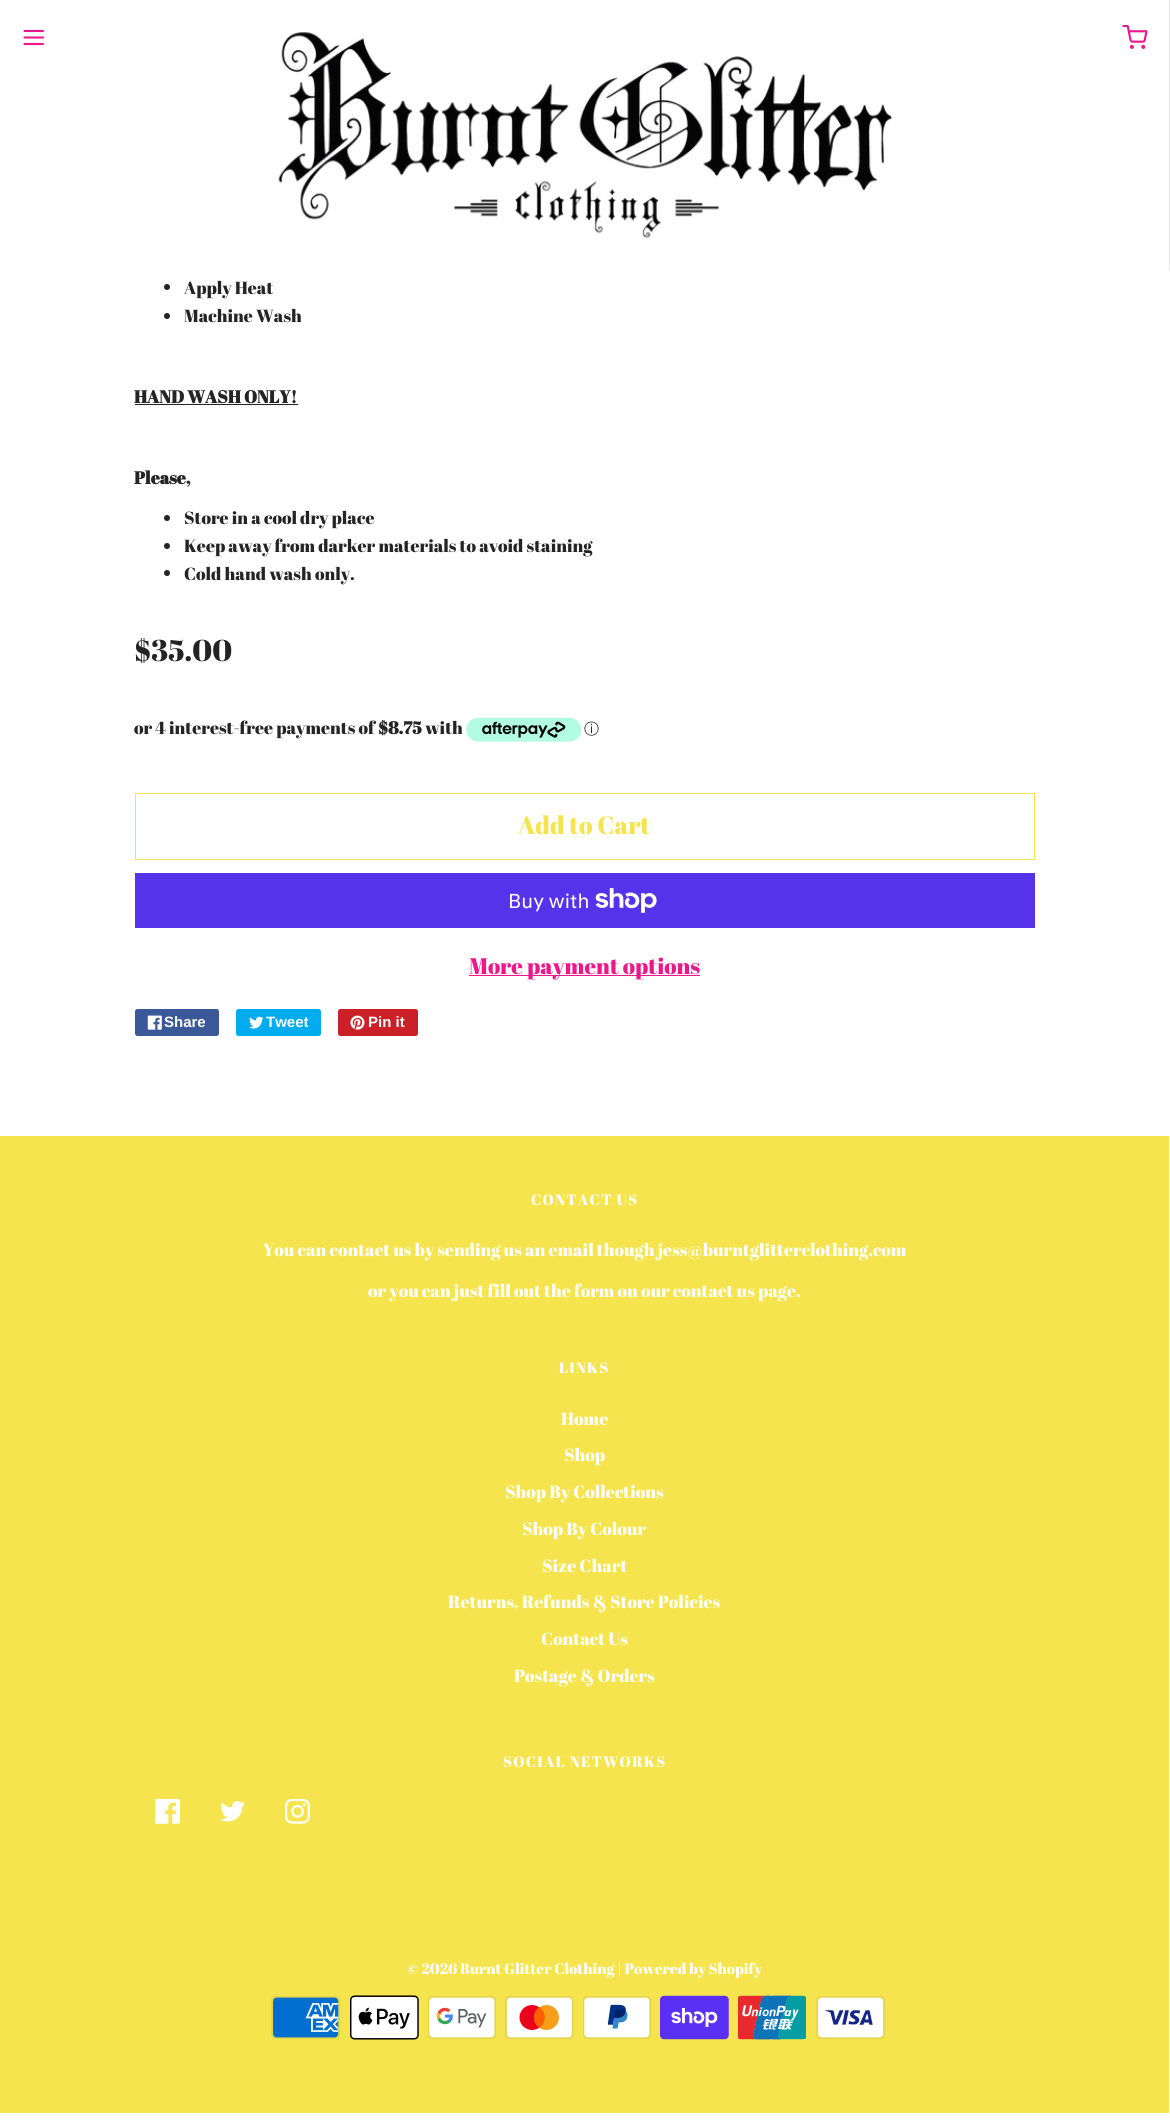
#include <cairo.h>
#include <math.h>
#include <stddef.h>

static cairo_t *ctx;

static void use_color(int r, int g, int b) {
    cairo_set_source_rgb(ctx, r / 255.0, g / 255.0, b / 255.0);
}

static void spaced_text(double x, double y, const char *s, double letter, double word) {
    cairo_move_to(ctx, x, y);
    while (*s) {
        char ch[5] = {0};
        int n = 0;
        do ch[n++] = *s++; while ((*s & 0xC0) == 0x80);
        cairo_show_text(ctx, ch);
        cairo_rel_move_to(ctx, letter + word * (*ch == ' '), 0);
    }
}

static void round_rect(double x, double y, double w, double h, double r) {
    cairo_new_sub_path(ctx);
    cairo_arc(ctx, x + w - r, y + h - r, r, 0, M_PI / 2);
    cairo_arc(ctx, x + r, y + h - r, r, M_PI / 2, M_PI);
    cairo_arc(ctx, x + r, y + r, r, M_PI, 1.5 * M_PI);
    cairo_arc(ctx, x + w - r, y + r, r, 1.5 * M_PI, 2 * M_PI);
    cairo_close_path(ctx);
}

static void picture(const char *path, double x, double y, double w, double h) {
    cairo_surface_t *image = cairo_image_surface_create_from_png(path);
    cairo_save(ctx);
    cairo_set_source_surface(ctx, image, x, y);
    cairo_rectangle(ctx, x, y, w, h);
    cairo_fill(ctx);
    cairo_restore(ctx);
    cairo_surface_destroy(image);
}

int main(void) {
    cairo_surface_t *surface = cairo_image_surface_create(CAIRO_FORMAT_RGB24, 1170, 2120);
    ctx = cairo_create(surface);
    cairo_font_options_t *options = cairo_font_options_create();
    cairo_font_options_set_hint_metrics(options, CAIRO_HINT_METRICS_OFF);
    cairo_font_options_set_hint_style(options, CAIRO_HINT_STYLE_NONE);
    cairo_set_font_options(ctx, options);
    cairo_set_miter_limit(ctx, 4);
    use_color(255, 255, 255);
    cairo_paint(ctx);
    use_color(230, 230, 230);
    cairo_rectangle(ctx, 1169, 0, 1, 270);
    cairo_fill(ctx);
    cairo_new_path(ctx);
    cairo_move_to(ctx, 24.5, 37.5);
    cairo_line_to(ctx, 43, 37.5);
    cairo_move_to(ctx, 24.5, 31);
    cairo_line_to(ctx, 43, 31);
    cairo_move_to(ctx, 24.5, 44);
    cairo_line_to(ctx, 43, 44);
    use_color(237, 23, 140);
    cairo_set_line_width(ctx, 2.1);
    cairo_set_line_cap(ctx, CAIRO_LINE_CAP_ROUND);
    cairo_set_line_join(ctx, CAIRO_LINE_JOIN_ROUND);
    cairo_stroke(ctx);
    picture("img1.png", 278, 32, 615, 207);
    picture("img2.png", 1122, 25, 26, 24);
    use_color(36, 36, 36);
    cairo_arc(ctx, 167, 287, 3, 0, 2 * M_PI);
    cairo_fill(ctx);
    cairo_select_font_face(ctx, "Abril Fatface", CAIRO_FONT_SLANT_NORMAL, CAIRO_FONT_WEIGHT_NORMAL);
    cairo_set_font_size(ctx, 17.5);
    cairo_move_to(ctx, 184, 294);
    cairo_show_text(ctx, "Apply Heat");
    cairo_new_path(ctx);
    cairo_arc(ctx, 167, 316, 3, 0, 2 * M_PI);
    cairo_fill(ctx);
    cairo_move_to(ctx, 184, 322);
    cairo_show_text(ctx, "Machine Wash");
    cairo_select_font_face(ctx, "Abril Fatface", CAIRO_FONT_SLANT_NORMAL, CAIRO_FONT_WEIGHT_BOLD);
    cairo_move_to(ctx, 134, 403);
    cairo_show_text(ctx, "HAND WASH ONLY!");
    cairo_rectangle(ctx, 135, 404, 163, 1);
    cairo_fill(ctx);
    cairo_move_to(ctx, 134, 484);
    cairo_show_text(ctx, "Please,");
    cairo_new_path(ctx);
    cairo_arc(ctx, 167, 518, 3, 0, 2 * M_PI);
    cairo_fill(ctx);
    cairo_select_font_face(ctx, "Abril Fatface", CAIRO_FONT_SLANT_NORMAL, CAIRO_FONT_WEIGHT_NORMAL);
    cairo_move_to(ctx, 184, 524);
    cairo_show_text(ctx, "Store in a cool dry place");
    cairo_new_path(ctx);
    cairo_arc(ctx, 167, 546, 3, 0, 2 * M_PI);
    cairo_fill(ctx);
    cairo_move_to(ctx, 184, 552);
    cairo_show_text(ctx, "Keep away from darker materials to avoid staining");
    cairo_new_path(ctx);
    cairo_arc(ctx, 167, 573, 3, 0, 2 * M_PI);
    cairo_fill(ctx);
    cairo_move_to(ctx, 184, 580);
    cairo_show_text(ctx, "Cold hand wash only.");
    cairo_set_font_size(ctx, 30);
    cairo_move_to(ctx, 134, 661);
    cairo_show_text(ctx, "$35.00");
    cairo_set_font_size(ctx, 17.5);
    cairo_move_to(ctx, 134, 734);
    cairo_show_text(ctx, "or 4 interest-free payments of");
    cairo_select_font_face(ctx, "Abril Fatface", CAIRO_FONT_SLANT_NORMAL, CAIRO_FONT_WEIGHT_BOLD);
    cairo_move_to(ctx, 378, 734);
    cairo_show_text(ctx, "$8.75");
    cairo_select_font_face(ctx, "Abril Fatface", CAIRO_FONT_SLANT_NORMAL, CAIRO_FONT_WEIGHT_NORMAL);
    cairo_move_to(ctx, 425, 734);
    cairo_show_text(ctx, "with");
    picture("img3.png", 466, 717, 115, 25);
    cairo_select_font_face(ctx, "WenQuanYi Zen Hei Medium", CAIRO_FONT_SLANT_NORMAL, CAIRO_FONT_WEIGHT_NORMAL);
    cairo_set_font_size(ctx, 15);
    cairo_move_to(ctx, 584, 734);
    cairo_show_text(ctx, "ⓘ");
    cairo_rectangle(ctx, 135.5, 793.5, 899, 66);
    use_color(245, 228, 77);
    cairo_set_line_width(ctx, 1);
    cairo_set_line_cap(ctx, CAIRO_LINE_CAP_BUTT);
    cairo_set_line_join(ctx, CAIRO_LINE_JOIN_MITER);
    cairo_stroke(ctx);
    cairo_select_font_face(ctx, "Abril Fatface", CAIRO_FONT_SLANT_NORMAL, CAIRO_FONT_WEIGHT_NORMAL);
    cairo_set_font_size(ctx, 25);
    cairo_move_to(ctx, 518, 834);
    cairo_show_text(ctx, "Add to Cart");
    use_color(84, 51, 235);
    cairo_rectangle(ctx, 135, 873, 900, 55);
    cairo_fill(ctx);
    cairo_select_font_face(ctx, "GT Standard", CAIRO_FONT_SLANT_NORMAL, CAIRO_FONT_WEIGHT_NORMAL);
    cairo_set_font_size(ctx, 20);
    use_color(255, 255, 255);
    cairo_move_to(ctx, 508, 908);
    cairo_show_text(ctx, "Buy with");
    picture("img4.png", 595, 888, 62, 25);
    use_color(237, 23, 140);
    cairo_rectangle(ctx, 469, 975, 231, 1);
    cairo_fill(ctx);
    cairo_select_font_face(ctx, "Abril Fatface", CAIRO_FONT_SLANT_NORMAL, CAIRO_FONT_WEIGHT_NORMAL);
    cairo_set_font_size(ctx, 22.5);
    cairo_move_to(ctx, 469, 974);
    cairo_show_text(ctx, "More payment options");
    use_color(59, 89, 152);
    round_rect(135, 1009, 84, 27, 2.5);
    cairo_fill(ctx);
    picture("img5.png", 147, 1015, 15, 15);
    cairo_select_font_face(ctx, "Liberation Sans", CAIRO_FONT_SLANT_NORMAL, CAIRO_FONT_WEIGHT_BOLD);
    cairo_set_font_size(ctx, 15);
    use_color(255, 255, 255);
    cairo_move_to(ctx, 164, 1027);
    cairo_show_text(ctx, "Share");
    use_color(0, 172, 237);
    round_rect(236, 1009, 85, 27, 2.5);
    cairo_fill(ctx);
    picture("img6.png", 249, 1016, 15, 13);
    use_color(255, 255, 255);
    cairo_move_to(ctx, 266, 1027);
    cairo_show_text(ctx, "Tweet");
    use_color(203, 32, 39);
    round_rect(338, 1009, 80, 27, 2.5);
    cairo_fill(ctx);
    picture("img7.png", 350, 1015, 15, 15);
    use_color(255, 255, 255);
    cairo_move_to(ctx, 368, 1027);
    cairo_show_text(ctx, "Pin it");
    use_color(245, 228, 77);
    cairo_rectangle(ctx, 0, 1136, 1169, 977);
    cairo_fill(ctx);
    cairo_select_font_face(ctx, "Abril Fatface", CAIRO_FONT_SLANT_NORMAL, CAIRO_FONT_WEIGHT_NORMAL);
    use_color(255, 255, 255);
    spaced_text(531, 1205, "CONTACT US", 1.25, 0);
    cairo_set_font_size(ctx, 17.5);
    cairo_move_to(ctx, 263, 1256);
    cairo_show_text(ctx, "You can contact us by sending us an email though jess@burntglitterclothing.com");
    cairo_move_to(ctx, 368, 1297);
    cairo_show_text(ctx, "or you can just fill out the form on our contact us page.");
    cairo_set_font_size(ctx, 15);
    spaced_text(559, 1373, "LINKS", 1.25, 0);
    cairo_set_font_size(ctx, 17.5);
    cairo_move_to(ctx, 561, 1425);
    cairo_show_text(ctx, "Home");
    cairo_move_to(ctx, 564, 1461);
    cairo_show_text(ctx, "Shop");
    cairo_move_to(ctx, 505, 1498);
    cairo_show_text(ctx, "Shop By Collections");
    cairo_move_to(ctx, 522, 1535);
    cairo_show_text(ctx, "Shop By Colour");
    cairo_move_to(ctx, 542, 1572);
    cairo_show_text(ctx, "Size Chart");
    cairo_move_to(ctx, 448, 1608);
    cairo_show_text(ctx, "Returns, Refunds & Store Policies");
    cairo_move_to(ctx, 541, 1645);
    cairo_show_text(ctx, "Contact Us");
    cairo_move_to(ctx, 514, 1682);
    cairo_show_text(ctx, "Postage & Orders");
    cairo_set_font_size(ctx, 15);
    spaced_text(503, 1767, "SOCIAL NETWORKS", 1.25, 0);
    picture("img8.png", 155, 1799, 25, 25);
    picture("img9.png", 220, 1801, 25, 21);
    picture("img10.png", 285, 1799, 25, 25);
    cairo_move_to(ctx, 407, 1974);
    cairo_show_text(ctx, "© 2026 Burnt Glitter Clothing | Powered by Shopify");
    picture("img11.png", 271, 1996, 69, 43);
    picture("img12.png", 350, 1995, 69, 45);
    picture("img13.png", 428, 1996, 68, 43);
    picture("img14.png", 505, 1996, 69, 43);
    picture("img15.png", 583, 1996, 68, 43);
    picture("img16.png", 660, 1995, 69, 45);
    picture("img17.png", 738, 1995, 68, 45);
    picture("img18.png", 816, 1996, 69, 43);
    cairo_surface_write_to_png(surface, "result.png");
    cairo_font_options_destroy(options);
    cairo_destroy(ctx);
    cairo_surface_destroy(surface);
    return 0;
}
